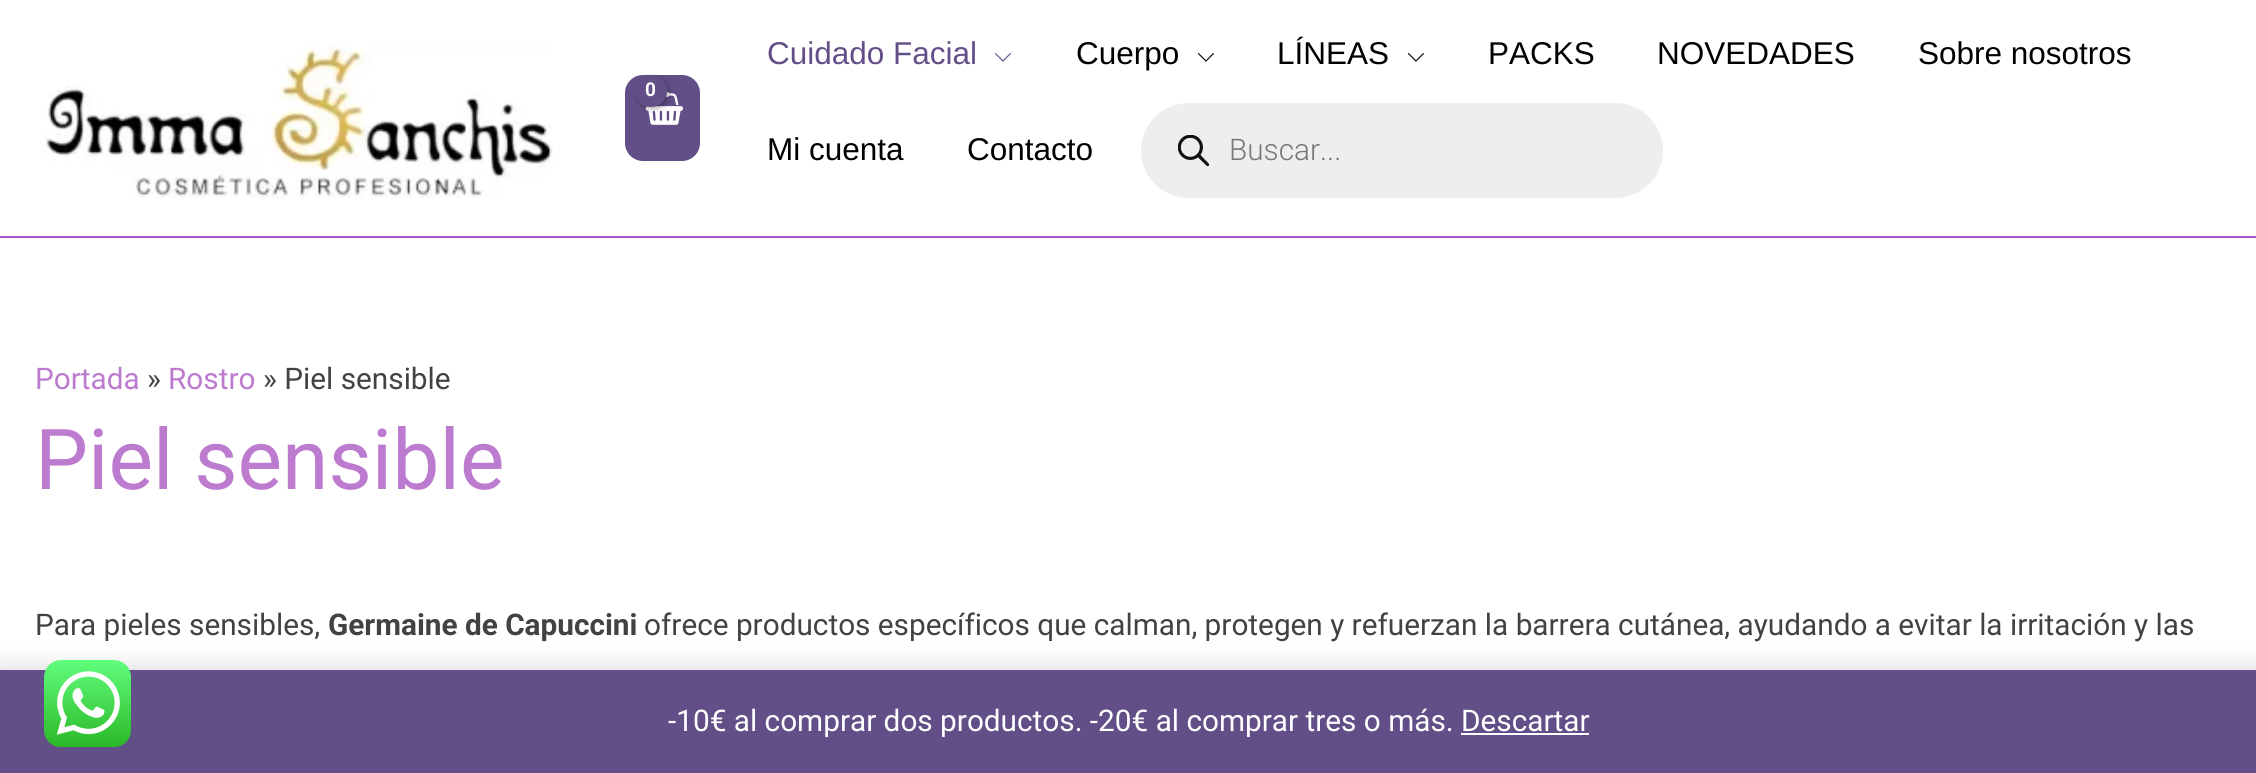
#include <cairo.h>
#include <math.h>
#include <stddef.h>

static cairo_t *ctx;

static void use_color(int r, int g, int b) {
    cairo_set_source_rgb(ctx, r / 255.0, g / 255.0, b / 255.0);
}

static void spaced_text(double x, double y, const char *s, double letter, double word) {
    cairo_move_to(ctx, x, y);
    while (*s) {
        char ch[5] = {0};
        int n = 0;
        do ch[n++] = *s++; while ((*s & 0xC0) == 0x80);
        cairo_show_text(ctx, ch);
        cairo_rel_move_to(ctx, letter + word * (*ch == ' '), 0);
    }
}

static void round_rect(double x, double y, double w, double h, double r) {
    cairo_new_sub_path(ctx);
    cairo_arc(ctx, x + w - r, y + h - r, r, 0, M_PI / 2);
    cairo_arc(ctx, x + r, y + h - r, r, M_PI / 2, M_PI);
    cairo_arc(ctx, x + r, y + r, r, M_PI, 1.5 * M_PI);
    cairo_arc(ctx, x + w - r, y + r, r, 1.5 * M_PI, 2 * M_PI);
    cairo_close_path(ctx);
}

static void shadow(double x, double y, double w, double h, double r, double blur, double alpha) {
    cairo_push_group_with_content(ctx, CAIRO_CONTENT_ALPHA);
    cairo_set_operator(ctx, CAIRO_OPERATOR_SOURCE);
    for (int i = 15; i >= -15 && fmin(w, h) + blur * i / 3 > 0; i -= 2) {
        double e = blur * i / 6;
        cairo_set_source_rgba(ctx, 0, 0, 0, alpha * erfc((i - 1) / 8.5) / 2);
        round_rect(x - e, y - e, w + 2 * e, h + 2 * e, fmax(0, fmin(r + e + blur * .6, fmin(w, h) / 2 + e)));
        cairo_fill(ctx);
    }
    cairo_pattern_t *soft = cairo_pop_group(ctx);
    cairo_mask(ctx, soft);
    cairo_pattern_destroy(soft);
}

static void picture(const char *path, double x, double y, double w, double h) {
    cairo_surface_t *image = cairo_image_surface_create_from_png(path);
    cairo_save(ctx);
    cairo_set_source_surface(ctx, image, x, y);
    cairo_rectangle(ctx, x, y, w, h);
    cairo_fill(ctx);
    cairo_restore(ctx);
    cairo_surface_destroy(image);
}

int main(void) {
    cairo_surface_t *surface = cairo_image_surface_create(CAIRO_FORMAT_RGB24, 2256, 773);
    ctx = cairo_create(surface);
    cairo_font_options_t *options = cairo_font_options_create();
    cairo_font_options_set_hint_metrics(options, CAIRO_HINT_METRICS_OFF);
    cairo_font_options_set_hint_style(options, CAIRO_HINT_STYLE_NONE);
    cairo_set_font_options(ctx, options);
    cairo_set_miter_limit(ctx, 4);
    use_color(255, 255, 255);
    cairo_paint(ctx);
    use_color(174, 85, 198);
    cairo_rectangle(ctx, 0, 236, 2256, 2);
    cairo_fill(ctx);
    picture("img1.png", 44, 45, 509, 153);
    use_color(98, 79, 136);
    round_rect(625, 75, 75, 86, 18);
    cairo_fill(ctx);
    picture("img2.png", 645, 92, 39, 33);
    use_color(0, 0, 0);
    shadow(637, 77, 32, 32, 16, 2.5, 0.3);
    use_color(98, 79, 136);
    cairo_arc(ctx, 651, 91, 16, 0, 2 * M_PI);
    cairo_fill(ctx);
    cairo_select_font_face(ctx, "Roboto", CAIRO_FONT_SLANT_NORMAL, CAIRO_FONT_WEIGHT_BOLD);
    cairo_set_font_size(ctx, 19);
    use_color(255, 255, 255);
    spaced_text(645, 96, "0", -1, 0);
    cairo_select_font_face(ctx, "Liberation Sans", CAIRO_FONT_SLANT_NORMAL, CAIRO_FONT_WEIGHT_NORMAL);
    cairo_set_font_size(ctx, 31.5);
    use_color(98, 79, 136);
    cairo_move_to(ctx, 767, 64);
    cairo_show_text(ctx, "Cuidado Facial");
    picture("img3.png", 994, 53, 17, 9);
    use_color(0, 0, 0);
    cairo_move_to(ctx, 1076, 64);
    cairo_show_text(ctx, "Cuerpo");
    picture("img4.png", 1197, 53, 17, 9);
    cairo_move_to(ctx, 1277, 64);
    cairo_show_text(ctx, "LÍNEAS");
    picture("img4.png", 1407, 53, 17, 9);
    cairo_move_to(ctx, 1488, 64);
    cairo_show_text(ctx, "PACKS");
    cairo_move_to(ctx, 1657, 64);
    cairo_show_text(ctx, "NOVEDADES");
    cairo_move_to(ctx, 1918, 64);
    cairo_show_text(ctx, "Sobre nosotros");
    cairo_move_to(ctx, 767, 160);
    cairo_show_text(ctx, "Mi cuenta");
    cairo_move_to(ctx, 967, 160);
    cairo_show_text(ctx, "Contacto");
    use_color(238, 238, 238);
    round_rect(1141, 103, 522, 95, 47.5);
    cairo_fill(ctx);
    picture("img5.png", 1178, 135, 31, 31);
    cairo_select_font_face(ctx, "Roboto Light", CAIRO_FONT_SLANT_NORMAL, CAIRO_FONT_WEIGHT_NORMAL);
    cairo_set_font_size(ctx, 29.75);
    use_color(119, 119, 119);
    cairo_move_to(ctx, 1229, 160);
    cairo_show_text(ctx, "Buscar...");
    cairo_select_font_face(ctx, "Roboto", CAIRO_FONT_SLANT_NORMAL, CAIRO_FONT_WEIGHT_NORMAL);
    use_color(189, 123, 207);
    cairo_move_to(ctx, 35, 389);
    cairo_show_text(ctx, "Portada");
    use_color(66, 66, 66);
    cairo_move_to(ctx, 147, 389);
    cairo_show_text(ctx, "»");
    use_color(189, 123, 207);
    cairo_move_to(ctx, 168, 389);
    cairo_show_text(ctx, "Rostro");
    use_color(66, 66, 66);
    cairo_move_to(ctx, 263, 389);
    cairo_show_text(ctx, "» Piel sensible");
    cairo_set_font_size(ctx, 84);
    use_color(189, 123, 207);
    cairo_move_to(ctx, 35, 489);
    cairo_show_text(ctx, "Piel sensible");
    cairo_set_font_size(ctx, 29.75);
    use_color(66, 66, 66);
    cairo_move_to(ctx, 35, 635);
    cairo_show_text(ctx, "Para pieles sensibles,");
    cairo_select_font_face(ctx, "Roboto", CAIRO_FONT_SLANT_NORMAL, CAIRO_FONT_WEIGHT_BOLD);
    cairo_move_to(ctx, 328, 635);
    cairo_show_text(ctx, "Germaine de Capuccini");
    cairo_select_font_face(ctx, "Roboto", CAIRO_FONT_SLANT_NORMAL, CAIRO_FONT_WEIGHT_NORMAL);
    cairo_move_to(ctx, 644, 635);
    cairo_show_text(ctx, "ofrece productos específicos que calman, protegen y refuerzan la barrera cutánea, ayudando a evitar la irritación y las");
    use_color(0, 0, 0);
    shadow(0, 672, 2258, 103, 0, 15, 0.2);
    use_color(98, 79, 136);
    cairo_rectangle(ctx, 0, 670, 2256, 103);
    cairo_fill(ctx);
    picture("img6.png", 44, 660, 87, 87);
    use_color(255, 255, 255);
    cairo_move_to(ctx, 668, 731);
    cairo_show_text(ctx, "-10€ al comprar dos productos. -20€ al comprar tres o más. Descartar");
    cairo_rectangle(ctx, 1461, 733, 128, 2);
    cairo_fill(ctx);
    cairo_surface_write_to_png(surface, "result.png");
    cairo_font_options_destroy(options);
    cairo_destroy(ctx);
    cairo_surface_destroy(surface);
    return 0;
}
